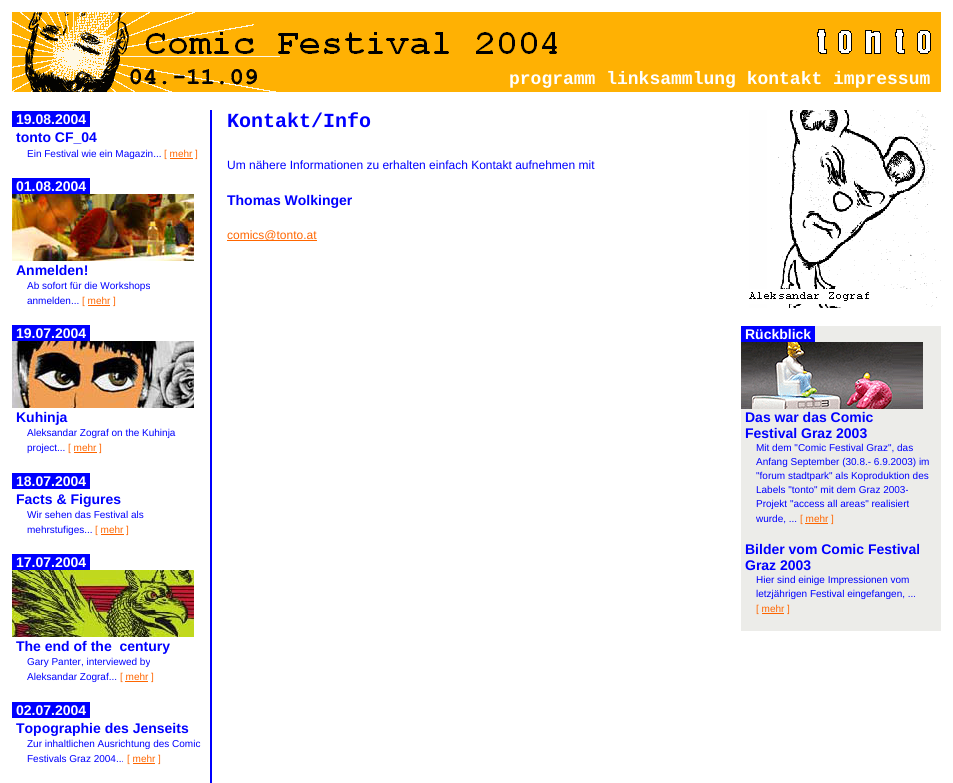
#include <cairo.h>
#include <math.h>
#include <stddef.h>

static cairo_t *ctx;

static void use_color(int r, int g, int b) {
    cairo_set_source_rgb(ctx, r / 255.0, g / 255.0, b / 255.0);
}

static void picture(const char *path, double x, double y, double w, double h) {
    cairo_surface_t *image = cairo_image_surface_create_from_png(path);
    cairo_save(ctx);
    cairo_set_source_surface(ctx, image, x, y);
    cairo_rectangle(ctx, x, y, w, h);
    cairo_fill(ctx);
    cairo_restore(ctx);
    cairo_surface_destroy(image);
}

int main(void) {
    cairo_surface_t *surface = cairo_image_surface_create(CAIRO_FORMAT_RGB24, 953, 783);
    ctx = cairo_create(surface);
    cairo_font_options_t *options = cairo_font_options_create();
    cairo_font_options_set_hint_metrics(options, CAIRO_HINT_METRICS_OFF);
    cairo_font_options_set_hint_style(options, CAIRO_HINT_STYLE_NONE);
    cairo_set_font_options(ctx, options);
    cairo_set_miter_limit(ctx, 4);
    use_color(255, 255, 255);
    cairo_paint(ctx);
    use_color(255, 177, 3);
    cairo_rectangle(ctx, 276, 12, 665, 80);
    cairo_fill(ctx);
    picture("img1.png", 12, 12, 300, 53);
    picture("img2.png", 312, 32, 245, 22);
    picture("img3.png", 817, 29, 114, 25);
    picture("img4.png", 12, 65, 264, 27);
    cairo_select_font_face(ctx, "Liberation Mono", CAIRO_FONT_SLANT_NORMAL, CAIRO_FONT_WEIGHT_BOLD);
    cairo_set_font_size(ctx, 18);
    use_color(255, 255, 255);
    cairo_move_to(ctx, 509, 84);
    cairo_show_text(ctx, "programm linksammlung kontakt impressum");
    use_color(0, 0, 255);
    cairo_rectangle(ctx, 12, 111, 78, 16);
    cairo_fill(ctx);
    cairo_select_font_face(ctx, "Liberation Sans", CAIRO_FONT_SLANT_NORMAL, CAIRO_FONT_WEIGHT_BOLD);
    cairo_set_font_size(ctx, 14);
    use_color(255, 255, 255);
    cairo_move_to(ctx, 16, 124);
    cairo_show_text(ctx, "19.08.2004");
    use_color(0, 0, 255);
    cairo_rectangle(ctx, 210, 110, 2, 673);
    cairo_fill(ctx);
    cairo_move_to(ctx, 16, 142);
    cairo_show_text(ctx, "tonto CF_04");
    cairo_select_font_face(ctx, "Liberation Sans", CAIRO_FONT_SLANT_NORMAL, CAIRO_FONT_WEIGHT_NORMAL);
    cairo_set_font_size(ctx, 10);
    cairo_move_to(ctx, 27, 157);
    cairo_show_text(ctx, "Ein Festival wie ein Magazin...");
    use_color(255, 102, 0);
    cairo_move_to(ctx, 164, 157);
    cairo_show_text(ctx, "[ mehr ]");
    cairo_rectangle(ctx, 170, 158, 23, 1);
    cairo_fill(ctx);
    use_color(0, 0, 255);
    cairo_rectangle(ctx, 12, 178, 78, 16);
    cairo_fill(ctx);
    cairo_select_font_face(ctx, "Liberation Sans", CAIRO_FONT_SLANT_NORMAL, CAIRO_FONT_WEIGHT_BOLD);
    cairo_set_font_size(ctx, 14);
    use_color(255, 255, 255);
    cairo_move_to(ctx, 16, 191);
    cairo_show_text(ctx, "01.08.2004");
    picture("img5.png", 12, 194, 182, 67);
    use_color(0, 0, 255);
    cairo_move_to(ctx, 16, 275);
    cairo_show_text(ctx, "Anmelden!");
    cairo_select_font_face(ctx, "Liberation Sans", CAIRO_FONT_SLANT_NORMAL, CAIRO_FONT_WEIGHT_NORMAL);
    cairo_set_font_size(ctx, 10);
    cairo_move_to(ctx, 27, 289);
    cairo_show_text(ctx, "Ab sofort für die Workshops");
    cairo_move_to(ctx, 27, 304);
    cairo_show_text(ctx, "anmelden...");
    use_color(255, 102, 0);
    cairo_move_to(ctx, 82, 304);
    cairo_show_text(ctx, "[ mehr ]");
    cairo_rectangle(ctx, 88, 305, 22, 1);
    cairo_fill(ctx);
    use_color(0, 0, 255);
    cairo_rectangle(ctx, 12, 325, 78, 16);
    cairo_fill(ctx);
    cairo_select_font_face(ctx, "Liberation Sans", CAIRO_FONT_SLANT_NORMAL, CAIRO_FONT_WEIGHT_BOLD);
    cairo_set_font_size(ctx, 14);
    use_color(255, 255, 255);
    cairo_move_to(ctx, 16, 338);
    cairo_show_text(ctx, "19.07.2004");
    picture("img6.png", 12, 341, 182, 67);
    use_color(0, 0, 255);
    cairo_move_to(ctx, 16, 422);
    cairo_show_text(ctx, "Kuhinja");
    cairo_select_font_face(ctx, "Liberation Sans", CAIRO_FONT_SLANT_NORMAL, CAIRO_FONT_WEIGHT_NORMAL);
    cairo_set_font_size(ctx, 10);
    cairo_move_to(ctx, 27, 436);
    cairo_show_text(ctx, "Aleksandar Zograf on the Kuhinja");
    cairo_move_to(ctx, 27, 451);
    cairo_show_text(ctx, "project...");
    use_color(255, 102, 0);
    cairo_move_to(ctx, 68, 451);
    cairo_show_text(ctx, "[ mehr ]");
    cairo_rectangle(ctx, 74, 452, 23, 1);
    cairo_fill(ctx);
    use_color(0, 0, 255);
    cairo_rectangle(ctx, 12, 473, 78, 16);
    cairo_fill(ctx);
    cairo_select_font_face(ctx, "Liberation Sans", CAIRO_FONT_SLANT_NORMAL, CAIRO_FONT_WEIGHT_BOLD);
    cairo_set_font_size(ctx, 14);
    use_color(255, 255, 255);
    cairo_move_to(ctx, 16, 486);
    cairo_show_text(ctx, "18.07.2004");
    use_color(0, 0, 255);
    cairo_move_to(ctx, 16, 504);
    cairo_show_text(ctx, "Facts & Figures");
    cairo_select_font_face(ctx, "Liberation Sans", CAIRO_FONT_SLANT_NORMAL, CAIRO_FONT_WEIGHT_NORMAL);
    cairo_set_font_size(ctx, 10);
    cairo_move_to(ctx, 27, 518);
    cairo_show_text(ctx, "Wir sehen das Festival als");
    cairo_move_to(ctx, 27, 533);
    cairo_show_text(ctx, "mehrstufiges...");
    use_color(255, 102, 0);
    cairo_move_to(ctx, 95, 533);
    cairo_show_text(ctx, "[ mehr ]");
    cairo_rectangle(ctx, 101, 534, 23, 1);
    cairo_fill(ctx);
    use_color(0, 0, 255);
    cairo_rectangle(ctx, 12, 554, 78, 16);
    cairo_fill(ctx);
    cairo_select_font_face(ctx, "Liberation Sans", CAIRO_FONT_SLANT_NORMAL, CAIRO_FONT_WEIGHT_BOLD);
    cairo_set_font_size(ctx, 14);
    use_color(255, 255, 255);
    cairo_move_to(ctx, 16, 567);
    cairo_show_text(ctx, "17.07.2004");
    picture("img7.png", 12, 570, 182, 67);
    use_color(0, 0, 255);
    cairo_move_to(ctx, 16, 651);
    cairo_show_text(ctx, "The end of the  century");
    cairo_select_font_face(ctx, "Liberation Sans", CAIRO_FONT_SLANT_NORMAL, CAIRO_FONT_WEIGHT_NORMAL);
    cairo_set_font_size(ctx, 10);
    cairo_move_to(ctx, 27, 665);
    cairo_show_text(ctx, "Gary Panter, interviewed by");
    cairo_move_to(ctx, 27, 680);
    cairo_show_text(ctx, "Aleksandar Zograf...");
    use_color(255, 102, 0);
    cairo_move_to(ctx, 120, 680);
    cairo_show_text(ctx, "[ mehr ]");
    cairo_rectangle(ctx, 125, 681, 23, 1);
    cairo_fill(ctx);
    use_color(0, 0, 255);
    cairo_rectangle(ctx, 12, 702, 78, 16);
    cairo_fill(ctx);
    cairo_select_font_face(ctx, "Liberation Sans", CAIRO_FONT_SLANT_NORMAL, CAIRO_FONT_WEIGHT_BOLD);
    cairo_set_font_size(ctx, 14);
    use_color(255, 255, 255);
    cairo_move_to(ctx, 16, 715);
    cairo_show_text(ctx, "02.07.2004");
    use_color(0, 0, 255);
    cairo_move_to(ctx, 16, 733);
    cairo_show_text(ctx, "Topographie des Jenseits");
    cairo_select_font_face(ctx, "Liberation Sans", CAIRO_FONT_SLANT_NORMAL, CAIRO_FONT_WEIGHT_NORMAL);
    cairo_set_font_size(ctx, 10);
    cairo_move_to(ctx, 27, 747);
    cairo_show_text(ctx, "Zur inhaltlichen Ausrichtung des Comic");
    cairo_move_to(ctx, 27, 762);
    cairo_show_text(ctx, "Festivals Graz 2004...");
    use_color(255, 102, 0);
    cairo_move_to(ctx, 127, 762);
    cairo_show_text(ctx, "[ mehr ]");
    cairo_rectangle(ctx, 133, 763, 22, 1);
    cairo_fill(ctx);
    cairo_select_font_face(ctx, "Liberation Mono", CAIRO_FONT_SLANT_NORMAL, CAIRO_FONT_WEIGHT_BOLD);
    cairo_set_font_size(ctx, 20);
    use_color(0, 0, 255);
    cairo_move_to(ctx, 227, 127);
    cairo_show_text(ctx, "Kontakt/Info");
    cairo_select_font_face(ctx, "Liberation Sans", CAIRO_FONT_SLANT_NORMAL, CAIRO_FONT_WEIGHT_NORMAL);
    cairo_set_font_size(ctx, 12);
    cairo_move_to(ctx, 227, 169);
    cairo_show_text(ctx, "Um nähere Informationen zu erhalten einfach Kontakt aufnehmen mit");
    cairo_select_font_face(ctx, "Liberation Sans", CAIRO_FONT_SLANT_NORMAL, CAIRO_FONT_WEIGHT_BOLD);
    cairo_set_font_size(ctx, 14);
    cairo_move_to(ctx, 227, 205);
    cairo_show_text(ctx, "Thomas Wolkinger");
    use_color(255, 102, 0);
    cairo_rectangle(ctx, 227, 240, 90, 1);
    cairo_fill(ctx);
    cairo_select_font_face(ctx, "Liberation Sans", CAIRO_FONT_SLANT_NORMAL, CAIRO_FONT_WEIGHT_NORMAL);
    cairo_set_font_size(ctx, 12);
    cairo_move_to(ctx, 227, 239);
    cairo_show_text(ctx, "comics@tonto.at");
    picture("img8.png", 749, 110, 192, 198);
    use_color(236, 236, 233);
    cairo_rectangle(ctx, 741, 326, 200, 305);
    cairo_fill(ctx);
    use_color(0, 0, 255);
    cairo_rectangle(ctx, 741, 326, 74, 16);
    cairo_fill(ctx);
    cairo_select_font_face(ctx, "Liberation Sans", CAIRO_FONT_SLANT_NORMAL, CAIRO_FONT_WEIGHT_BOLD);
    cairo_set_font_size(ctx, 14);
    use_color(255, 255, 255);
    cairo_move_to(ctx, 745, 339);
    cairo_show_text(ctx, "Rückblick");
    picture("img9.png", 741, 342, 182, 67);
    use_color(0, 0, 255);
    cairo_move_to(ctx, 745, 422);
    cairo_show_text(ctx, "Das war das Comic");
    cairo_move_to(ctx, 745, 438);
    cairo_show_text(ctx, "Festival Graz 2003");
    cairo_select_font_face(ctx, "Liberation Sans", CAIRO_FONT_SLANT_NORMAL, CAIRO_FONT_WEIGHT_NORMAL);
    cairo_set_font_size(ctx, 10);
    cairo_move_to(ctx, 756, 451);
    cairo_show_text(ctx, "Mit dem \"Comic Festival Graz\", das");
    cairo_move_to(ctx, 756, 465);
    cairo_show_text(ctx, "Anfang September (30.8.- 6.9.2003) im");
    cairo_move_to(ctx, 756, 479);
    cairo_show_text(ctx, "\"forum stadtpark\" als Koproduktion des");
    cairo_move_to(ctx, 756, 493);
    cairo_show_text(ctx, "Labels \"tonto\" mit dem Graz 2003-");
    cairo_move_to(ctx, 756, 507);
    cairo_show_text(ctx, "Projekt \"access all areas\" realisiert");
    cairo_move_to(ctx, 756, 522);
    cairo_show_text(ctx, "wurde, ...");
    use_color(255, 102, 0);
    cairo_move_to(ctx, 800, 522);
    cairo_show_text(ctx, "[ mehr ]");
    cairo_rectangle(ctx, 805, 523, 23, 1);
    cairo_fill(ctx);
    cairo_select_font_face(ctx, "Liberation Sans", CAIRO_FONT_SLANT_NORMAL, CAIRO_FONT_WEIGHT_BOLD);
    cairo_set_font_size(ctx, 14);
    use_color(0, 0, 255);
    cairo_move_to(ctx, 745, 554);
    cairo_show_text(ctx, "Bilder vom Comic Festival");
    cairo_move_to(ctx, 745, 570);
    cairo_show_text(ctx, "Graz 2003");
    cairo_select_font_face(ctx, "Liberation Sans", CAIRO_FONT_SLANT_NORMAL, CAIRO_FONT_WEIGHT_NORMAL);
    cairo_set_font_size(ctx, 10);
    cairo_move_to(ctx, 756, 583);
    cairo_show_text(ctx, "Hier sind einige Impressionen vom");
    cairo_move_to(ctx, 756, 597);
    cairo_show_text(ctx, "letzjährigen Festival eingefangen, ...");
    use_color(255, 102, 0);
    cairo_move_to(ctx, 756, 612);
    cairo_show_text(ctx, "[ mehr ]");
    cairo_rectangle(ctx, 762, 613, 22, 1);
    cairo_fill(ctx);
    cairo_surface_write_to_png(surface, "result.png");
    cairo_font_options_destroy(options);
    cairo_destroy(ctx);
    cairo_surface_destroy(surface);
    return 0;
}
